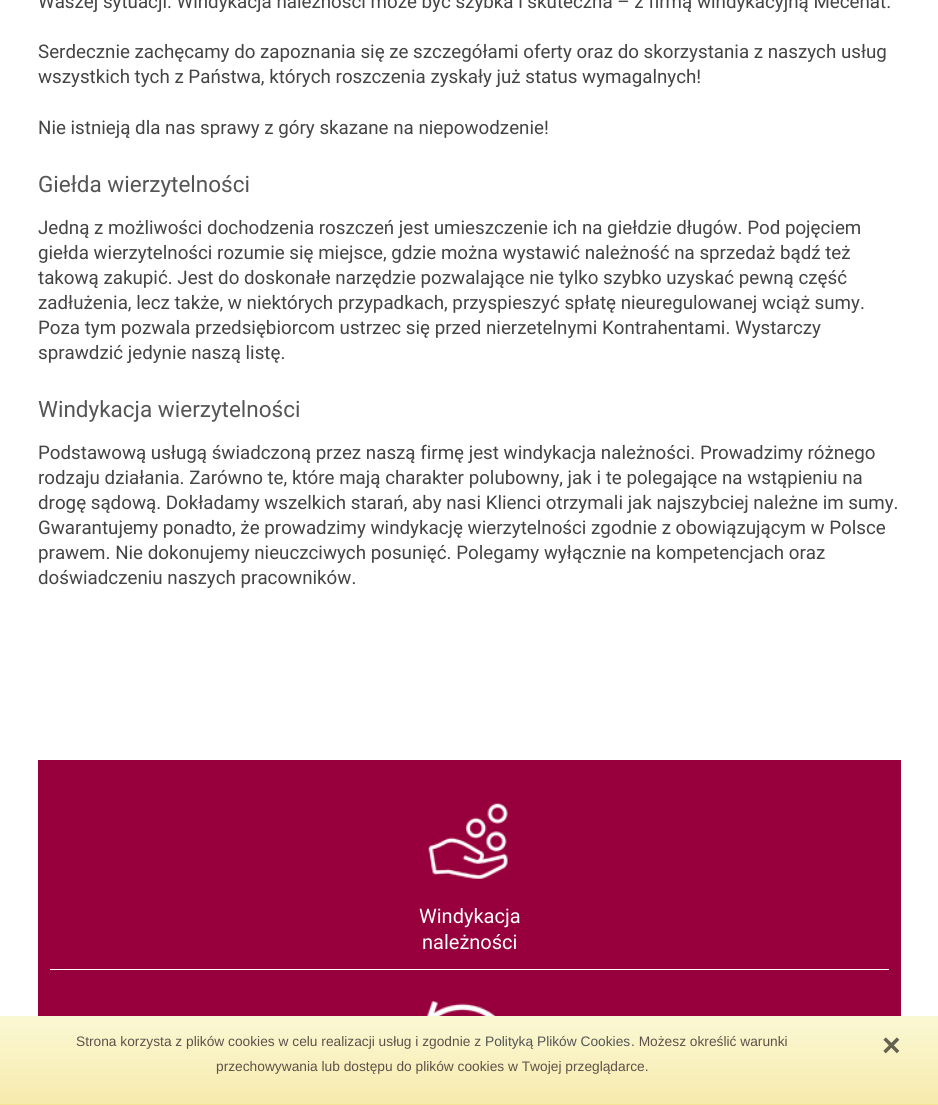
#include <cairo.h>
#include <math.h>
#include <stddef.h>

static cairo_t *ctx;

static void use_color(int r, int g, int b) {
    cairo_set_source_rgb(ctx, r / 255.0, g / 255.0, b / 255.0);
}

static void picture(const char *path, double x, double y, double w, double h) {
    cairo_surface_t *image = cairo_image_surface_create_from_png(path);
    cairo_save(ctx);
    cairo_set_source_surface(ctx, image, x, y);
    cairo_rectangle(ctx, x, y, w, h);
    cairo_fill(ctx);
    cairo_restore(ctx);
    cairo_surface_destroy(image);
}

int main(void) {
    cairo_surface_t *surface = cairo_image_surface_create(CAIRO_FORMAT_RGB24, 938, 1105);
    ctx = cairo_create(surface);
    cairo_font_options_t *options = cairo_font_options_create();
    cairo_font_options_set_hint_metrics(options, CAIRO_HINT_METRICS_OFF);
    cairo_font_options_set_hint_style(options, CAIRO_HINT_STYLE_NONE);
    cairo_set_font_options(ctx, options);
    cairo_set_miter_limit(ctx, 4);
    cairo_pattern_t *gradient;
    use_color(255, 255, 255);
    cairo_paint(ctx);
    cairo_select_font_face(ctx, "Roboto", CAIRO_FONT_SLANT_NORMAL, CAIRO_FONT_WEIGHT_NORMAL);
    cairo_set_font_size(ctx, 18.75);
    use_color(68, 68, 68);
    cairo_move_to(ctx, 38, 8);
    cairo_show_text(ctx, "Waszej sytuacji. Windykacja należności może być szybka i skuteczna – z firmą windykacyjną Mecenat.");
    cairo_move_to(ctx, 38, 58);
    cairo_show_text(ctx, "Serdecznie zachęcamy do zapoznania się ze szczegółami oferty oraz do skorzystania z naszych usług");
    cairo_move_to(ctx, 38, 83);
    cairo_show_text(ctx, "wszystkich tych z Państwa, których roszczenia zyskały już status wymagalnych!");
    cairo_move_to(ctx, 38, 134);
    cairo_show_text(ctx, "Nie istnieją dla nas sprawy z góry skazane na niepowodzenie!");
    cairo_set_font_size(ctx, 22.5);
    use_color(85, 85, 85);
    cairo_move_to(ctx, 38, 192);
    cairo_show_text(ctx, "Giełda wierzytelności");
    cairo_set_font_size(ctx, 18.75);
    use_color(68, 68, 68);
    cairo_move_to(ctx, 38, 234);
    cairo_show_text(ctx, "Jedną z możliwości dochodzenia roszczeń jest umieszczenie ich na giełdzie długów. Pod pojęciem");
    cairo_move_to(ctx, 38, 259);
    cairo_show_text(ctx, "giełda wierzytelności rozumie się miejsce, gdzie można wystawić należność na sprzedaż bądź też");
    cairo_move_to(ctx, 38, 284);
    cairo_show_text(ctx, "takową zakupić. Jest do doskonałe narzędzie pozwalające nie tylko szybko uzyskać pewną część");
    cairo_move_to(ctx, 38, 309);
    cairo_show_text(ctx, "zadłużenia, lecz także, w niektórych przypadkach, przyspieszyć spłatę nieuregulowanej wciąż sumy.");
    cairo_move_to(ctx, 38, 334);
    cairo_show_text(ctx, "Poza tym pozwala przedsiębiorcom ustrzec się przed nierzetelnymi Kontrahentami. Wystarczy");
    cairo_move_to(ctx, 38, 359);
    cairo_show_text(ctx, "sprawdzić jedynie naszą listę.");
    cairo_set_font_size(ctx, 22.5);
    use_color(85, 85, 85);
    cairo_move_to(ctx, 38, 417);
    cairo_show_text(ctx, "Windykacja wierzytelności");
    cairo_set_font_size(ctx, 18.75);
    use_color(68, 68, 68);
    cairo_move_to(ctx, 38, 459);
    cairo_show_text(ctx, "Podstawową usługą świadczoną przez naszą firmę jest windykacja należności. Prowadzimy różnego");
    cairo_move_to(ctx, 38, 484);
    cairo_show_text(ctx, "rodzaju działania. Zarówno te, które mają charakter polubowny, jak i te polegające na wstąpieniu na");
    cairo_move_to(ctx, 38, 509);
    cairo_show_text(ctx, "drogę sądową. Dokładamy wszelkich starań, aby nasi Klienci otrzymali jak najszybciej należne im sumy.");
    cairo_move_to(ctx, 38, 534);
    cairo_show_text(ctx, "Gwarantujemy ponadto, że prowadzimy windykację wierzytelności zgodnie z obowiązującym w Polsce");
    cairo_move_to(ctx, 38, 559);
    cairo_show_text(ctx, "prawem. Nie dokonujemy nieuczciwych posunięć. Polegamy wyłącznie na kompetencjach oraz");
    cairo_move_to(ctx, 38, 584);
    cairo_show_text(ctx, "doświadczeniu naszych pracowników.");
    use_color(151, 0, 60);
    cairo_rectangle(ctx, 38, 760, 863, 256);
    cairo_fill(ctx);
    use_color(255, 255, 255);
    cairo_rectangle(ctx, 50, 969, 839, 1);
    cairo_fill(ctx);
    picture("img1.png", 428, 803, 80, 76);
    cairo_set_font_size(ctx, 20);
    cairo_move_to(ctx, 419, 923);
    cairo_show_text(ctx, "Windykacja");
    cairo_move_to(ctx, 422, 949);
    cairo_show_text(ctx, "należności");
    picture("img2.png", 424, 1001, 90, 15);
    gradient = cairo_pattern_create_linear(469, 1016, 469, 1104);
    cairo_pattern_add_color_stop_rgba(gradient, 0, 0.98, 0.973, 0.831, 1);
    cairo_pattern_add_color_stop_rgba(gradient, 1, 0.969, 0.918, 0.678, 1);
    cairo_set_source(ctx, gradient);
    cairo_pattern_destroy(gradient);
    cairo_rectangle(ctx, 0, 1016, 938, 88);
    cairo_fill(ctx);
    use_color(245, 227, 147);
    cairo_rectangle(ctx, 0, 1104, 938, 1);
    cairo_fill(ctx);
    cairo_select_font_face(ctx, "Liberation Sans", CAIRO_FONT_SLANT_NORMAL, CAIRO_FONT_WEIGHT_NORMAL);
    cairo_set_font_size(ctx, 13.75);
    use_color(94, 81, 73);
    cairo_move_to(ctx, 76, 1046);
    cairo_show_text(ctx, "Strona korzysta z plików cookies w celu realizacji usług i zgodnie z");
    use_color(85, 85, 85);
    cairo_move_to(ctx, 485, 1046);
    cairo_show_text(ctx, "Polityką Plików Cookies");
    use_color(94, 81, 73);
    cairo_move_to(ctx, 631, 1046);
    cairo_show_text(ctx, ". Możesz określić warunki");
    cairo_move_to(ctx, 216, 1071);
    cairo_show_text(ctx, "przechowywania lub dostępu do plików cookies w Twojej przeglądarce.");
    cairo_select_font_face(ctx, "Liberation Sans", CAIRO_FONT_SLANT_NORMAL, CAIRO_FONT_WEIGHT_BOLD);
    cairo_set_font_size(ctx, 32);
    use_color(100, 97, 80);
    cairo_move_to(ctx, 882, 1056);
    cairo_show_text(ctx, "×");
    cairo_surface_write_to_png(surface, "result.png");
    cairo_font_options_destroy(options);
    cairo_destroy(ctx);
    cairo_surface_destroy(surface);
    return 0;
}
